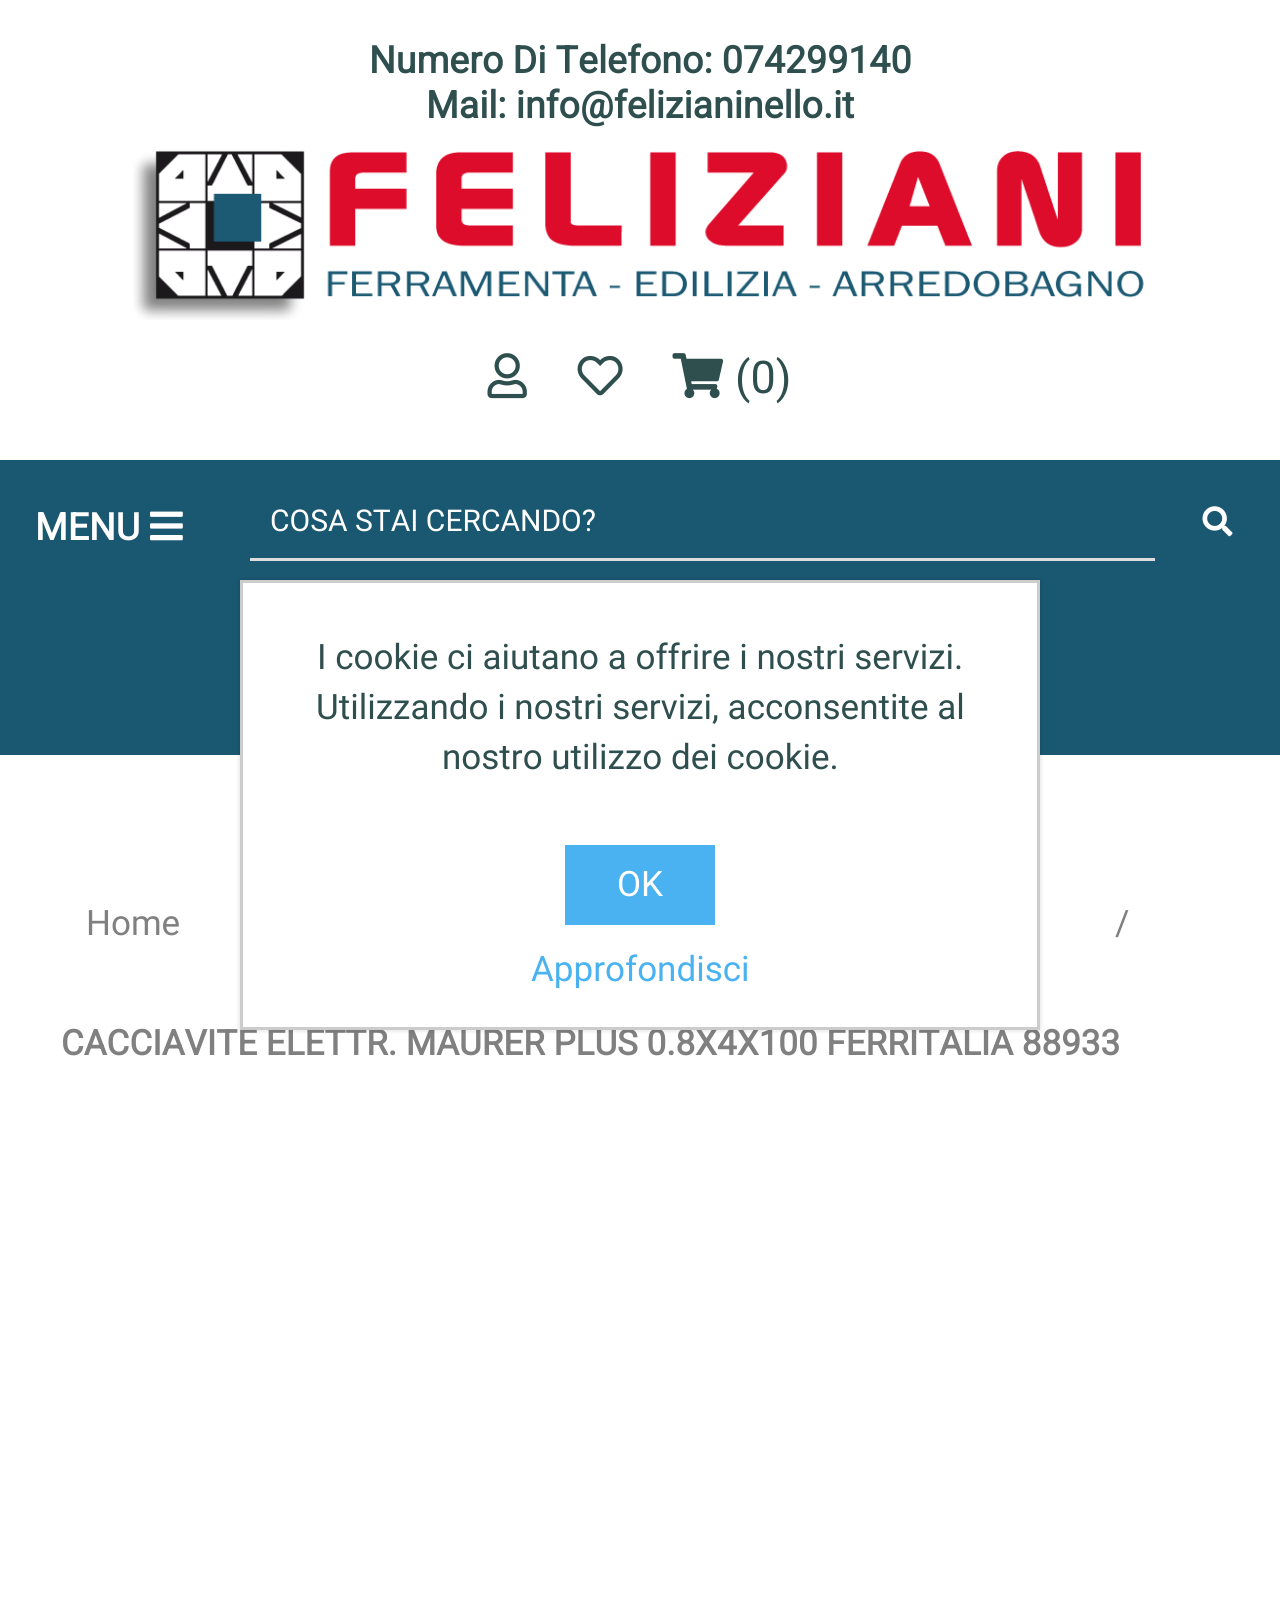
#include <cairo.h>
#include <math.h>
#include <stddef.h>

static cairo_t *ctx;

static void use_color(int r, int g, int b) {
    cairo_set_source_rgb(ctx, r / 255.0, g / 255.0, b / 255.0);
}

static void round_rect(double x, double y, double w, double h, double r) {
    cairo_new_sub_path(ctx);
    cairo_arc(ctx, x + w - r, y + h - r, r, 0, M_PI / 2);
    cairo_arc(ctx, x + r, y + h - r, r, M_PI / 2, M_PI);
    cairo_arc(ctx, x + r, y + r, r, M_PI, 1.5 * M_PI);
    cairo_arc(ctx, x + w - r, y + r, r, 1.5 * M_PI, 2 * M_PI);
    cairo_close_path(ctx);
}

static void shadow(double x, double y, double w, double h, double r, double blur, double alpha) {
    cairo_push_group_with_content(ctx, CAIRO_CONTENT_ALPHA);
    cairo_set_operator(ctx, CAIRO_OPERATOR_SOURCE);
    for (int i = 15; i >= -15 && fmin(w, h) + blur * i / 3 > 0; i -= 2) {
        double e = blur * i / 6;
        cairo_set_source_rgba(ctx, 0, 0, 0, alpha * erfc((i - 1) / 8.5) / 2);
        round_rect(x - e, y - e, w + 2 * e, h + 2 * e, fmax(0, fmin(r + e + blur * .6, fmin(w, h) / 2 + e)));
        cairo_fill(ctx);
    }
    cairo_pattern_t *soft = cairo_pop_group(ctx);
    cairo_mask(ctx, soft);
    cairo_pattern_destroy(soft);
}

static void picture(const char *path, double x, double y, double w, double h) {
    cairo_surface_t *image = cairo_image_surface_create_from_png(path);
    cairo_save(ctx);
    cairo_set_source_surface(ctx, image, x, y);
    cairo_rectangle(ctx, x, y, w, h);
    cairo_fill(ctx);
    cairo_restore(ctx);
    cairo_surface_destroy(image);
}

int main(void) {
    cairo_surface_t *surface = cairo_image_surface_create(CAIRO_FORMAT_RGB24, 1280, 1607);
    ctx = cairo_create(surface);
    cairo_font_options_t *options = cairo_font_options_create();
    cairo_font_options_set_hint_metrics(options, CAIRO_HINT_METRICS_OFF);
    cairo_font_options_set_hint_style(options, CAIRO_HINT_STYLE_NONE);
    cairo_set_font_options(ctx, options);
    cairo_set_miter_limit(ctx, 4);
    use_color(255, 255, 255);
    cairo_paint(ctx);
    cairo_select_font_face(ctx, "Roboto", CAIRO_FONT_SLANT_NORMAL, CAIRO_FONT_WEIGHT_BOLD);
    cairo_set_font_size(ctx, 37.5);
    use_color(47, 79, 79);
    cairo_move_to(ctx, 369, 73);
    cairo_show_text(ctx, "Numero Di Telefono: 074299140");
    cairo_move_to(ctx, 426, 118);
    cairo_show_text(ctx, "Mail: info@felizianinello.it");
    picture("img1.png", 133, 150, 1011, 170);
    picture("img2.png", 487, 353, 40, 46);
    picture("img3.png", 577, 356, 46, 40);
    picture("img4.png", 672, 353, 52, 46);
    cairo_select_font_face(ctx, "Roboto", CAIRO_FONT_SLANT_NORMAL, CAIRO_FONT_WEIGHT_NORMAL);
    cairo_set_font_size(ctx, 45);
    cairo_move_to(ctx, 735, 393);
    cairo_show_text(ctx, "(0)");
    use_color(26, 88, 113);
    cairo_rectangle(ctx, 0, 460, 1280, 295);
    cairo_fill(ctx);
    cairo_select_font_face(ctx, "Roboto", CAIRO_FONT_SLANT_NORMAL, CAIRO_FONT_WEIGHT_BOLD);
    cairo_set_font_size(ctx, 37.5);
    use_color(255, 255, 255);
    cairo_move_to(ctx, 35, 540);
    cairo_show_text(ctx, "MENU");
    picture("img5.png", 150, 511, 33, 30);
    use_color(221, 221, 221);
    cairo_rectangle(ctx, 250, 558, 905, 3);
    cairo_fill(ctx);
    cairo_select_font_face(ctx, "Roboto", CAIRO_FONT_SLANT_NORMAL, CAIRO_FONT_WEIGHT_NORMAL);
    cairo_set_font_size(ctx, 30);
    use_color(255, 255, 255);
    cairo_move_to(ctx, 270, 531);
    cairo_show_text(ctx, "COSA STAI CERCANDO?");
    picture("img6.png", 1202, 506, 31, 31);
    cairo_set_font_size(ctx, 35);
    use_color(128, 128, 128);
    cairo_move_to(ctx, 86, 935);
    cairo_show_text(ctx, "Home");
    cairo_move_to(ctx, 1115, 935);
    cairo_show_text(ctx, "/");
    cairo_select_font_face(ctx, "Roboto", CAIRO_FONT_SLANT_NORMAL, CAIRO_FONT_WEIGHT_BOLD);
    cairo_move_to(ctx, 61, 1055);
    cairo_show_text(ctx, "CACCIAVITE ELETTR. MAURER PLUS 0.8X4X100 FERRITALIA 88933");
    use_color(0, 0, 0);
    shadow(240, 580, 800, 450, 0, 2.5, 0.15);
    use_color(255, 255, 255);
    cairo_rectangle(ctx, 241.5, 581.5, 797, 447);
    cairo_fill_preserve(ctx);
    use_color(204, 204, 204);
    cairo_set_line_width(ctx, 3);
    cairo_stroke(ctx);
    cairo_select_font_face(ctx, "Roboto", CAIRO_FONT_SLANT_NORMAL, CAIRO_FONT_WEIGHT_NORMAL);
    use_color(47, 79, 79);
    cairo_move_to(ctx, 317, 669);
    cairo_show_text(ctx, "I cookie ci aiutano a offrire i nostri servizi.");
    cairo_move_to(ctx, 316, 719);
    cairo_show_text(ctx, "Utilizzando i nostri servizi, acconsentite al");
    cairo_move_to(ctx, 442, 769);
    cairo_show_text(ctx, "nostro utilizzo dei cookie.");
    use_color(74, 178, 241);
    cairo_rectangle(ctx, 565, 845, 150, 80);
    cairo_fill(ctx);
    use_color(255, 255, 255);
    cairo_move_to(ctx, 617, 896);
    cairo_show_text(ctx, "OK");
    use_color(74, 178, 241);
    cairo_move_to(ctx, 531, 981);
    cairo_show_text(ctx, "Approfondisci");
    cairo_surface_write_to_png(surface, "result.png");
    cairo_font_options_destroy(options);
    cairo_destroy(ctx);
    cairo_surface_destroy(surface);
    return 0;
}
